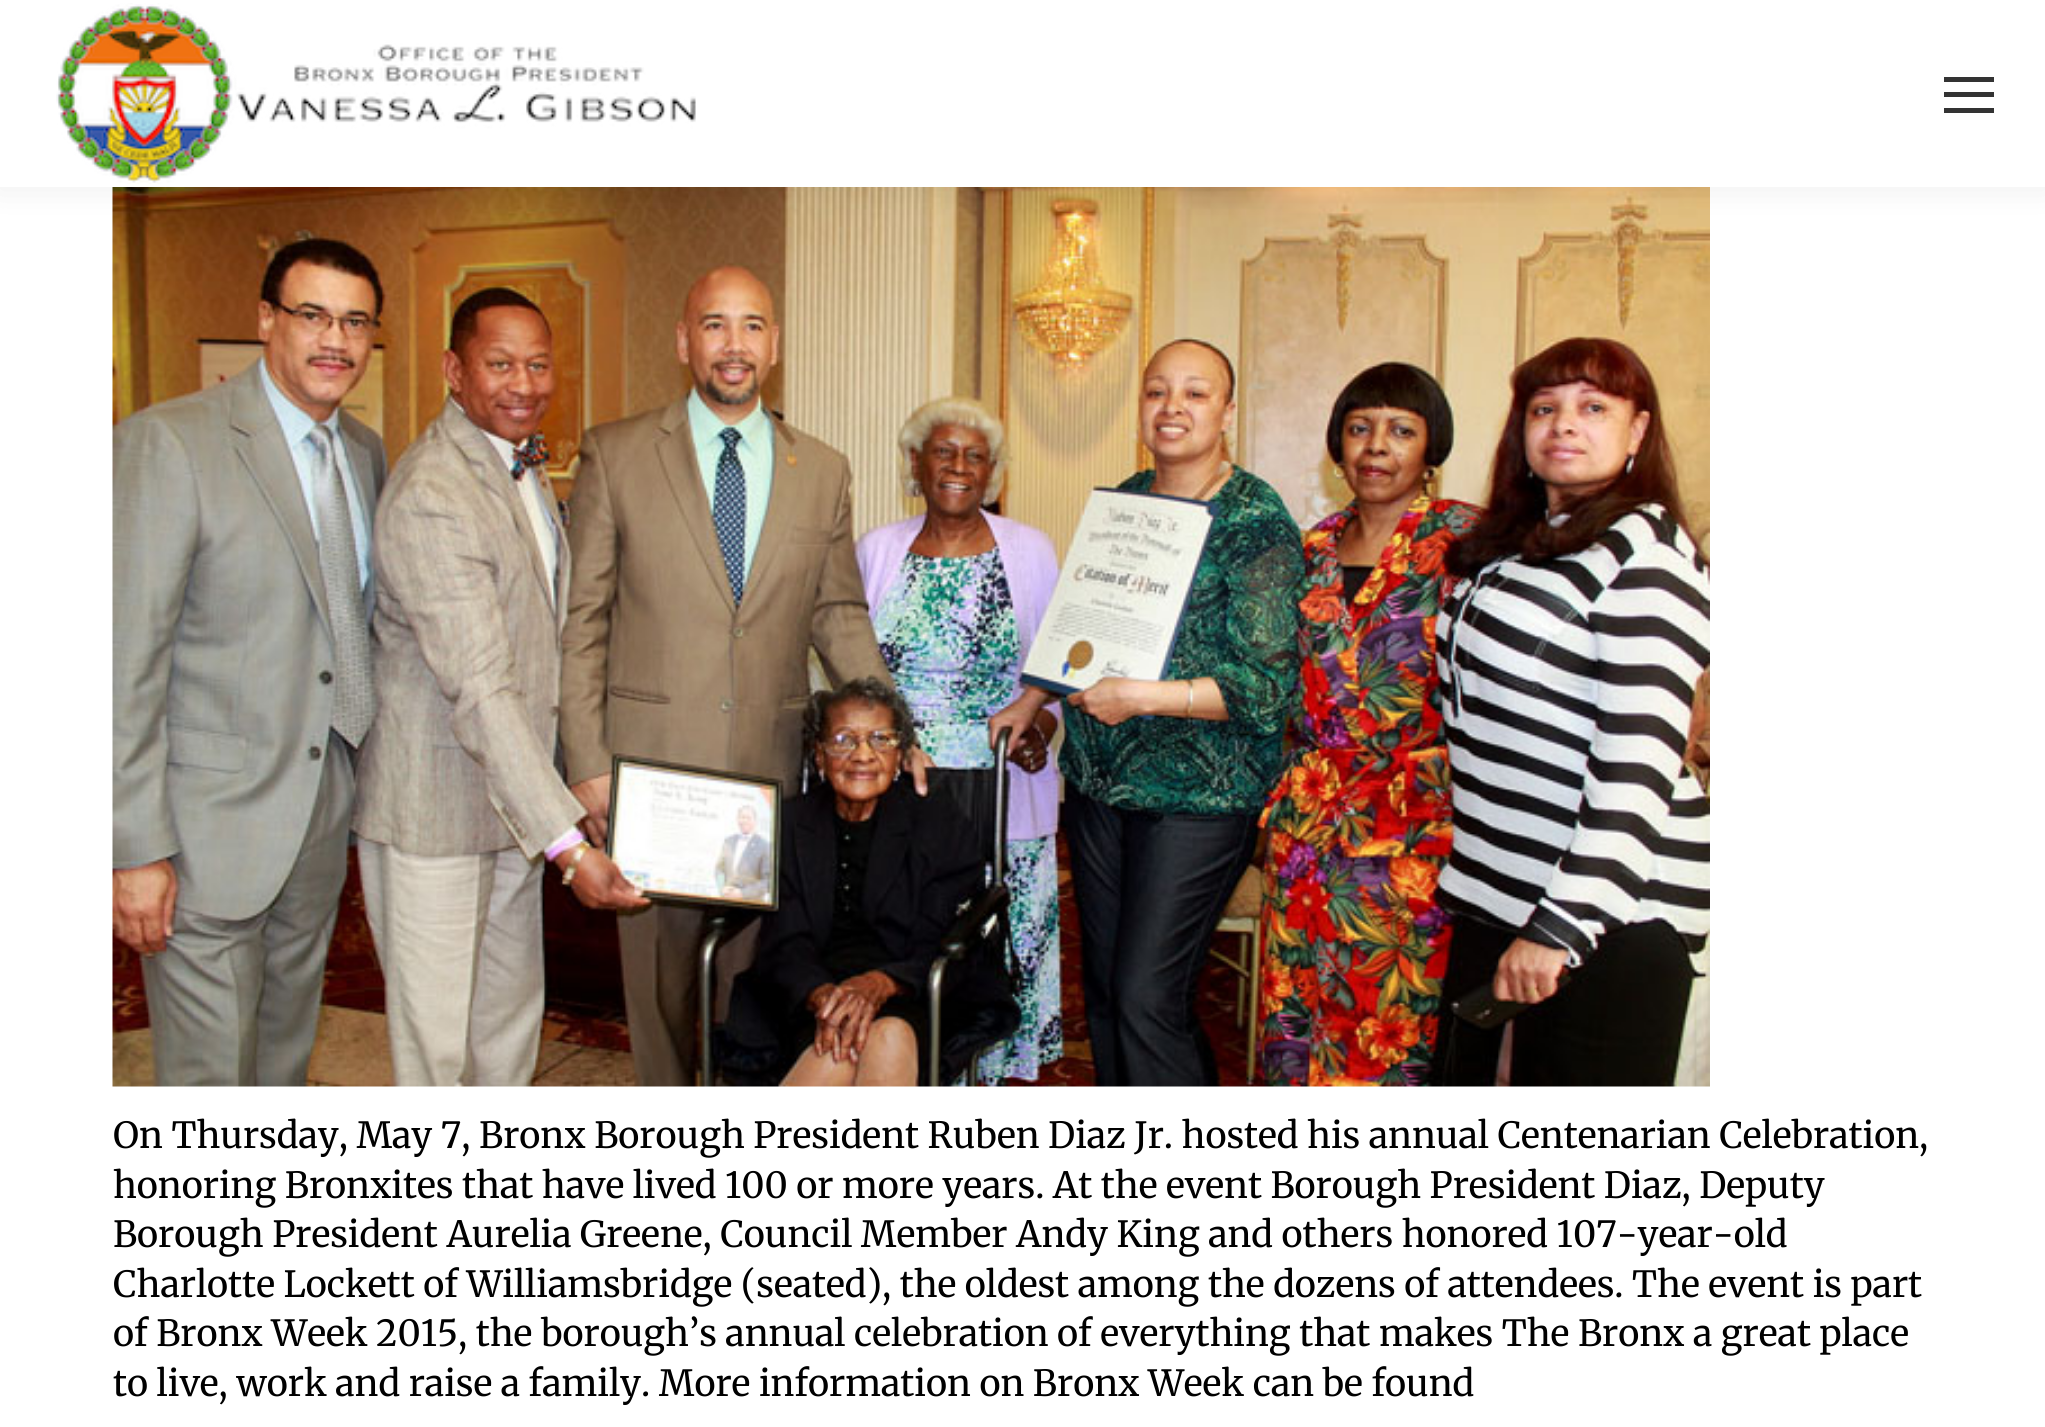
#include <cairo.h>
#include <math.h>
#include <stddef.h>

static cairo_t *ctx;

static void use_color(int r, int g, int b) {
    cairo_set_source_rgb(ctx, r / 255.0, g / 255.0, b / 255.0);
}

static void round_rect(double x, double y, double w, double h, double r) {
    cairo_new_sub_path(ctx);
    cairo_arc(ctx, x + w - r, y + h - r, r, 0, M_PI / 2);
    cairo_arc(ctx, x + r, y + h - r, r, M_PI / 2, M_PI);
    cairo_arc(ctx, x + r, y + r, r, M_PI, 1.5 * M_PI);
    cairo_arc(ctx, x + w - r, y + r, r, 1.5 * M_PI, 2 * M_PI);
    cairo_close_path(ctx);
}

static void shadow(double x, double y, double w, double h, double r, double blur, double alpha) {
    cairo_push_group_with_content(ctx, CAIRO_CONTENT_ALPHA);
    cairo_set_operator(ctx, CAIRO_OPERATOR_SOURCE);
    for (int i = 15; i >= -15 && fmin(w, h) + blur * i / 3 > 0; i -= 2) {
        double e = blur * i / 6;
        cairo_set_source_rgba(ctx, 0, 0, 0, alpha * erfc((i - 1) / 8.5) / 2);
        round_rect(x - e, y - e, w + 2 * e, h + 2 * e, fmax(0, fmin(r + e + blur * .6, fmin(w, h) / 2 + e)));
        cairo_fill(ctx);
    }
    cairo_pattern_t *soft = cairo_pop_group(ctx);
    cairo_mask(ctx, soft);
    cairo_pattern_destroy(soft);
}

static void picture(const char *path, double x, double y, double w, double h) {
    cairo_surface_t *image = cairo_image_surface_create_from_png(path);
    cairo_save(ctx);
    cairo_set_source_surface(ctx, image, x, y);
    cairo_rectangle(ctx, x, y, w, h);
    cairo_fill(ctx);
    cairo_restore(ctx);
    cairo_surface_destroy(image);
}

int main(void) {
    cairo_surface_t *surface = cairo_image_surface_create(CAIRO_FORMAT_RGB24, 2045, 1427);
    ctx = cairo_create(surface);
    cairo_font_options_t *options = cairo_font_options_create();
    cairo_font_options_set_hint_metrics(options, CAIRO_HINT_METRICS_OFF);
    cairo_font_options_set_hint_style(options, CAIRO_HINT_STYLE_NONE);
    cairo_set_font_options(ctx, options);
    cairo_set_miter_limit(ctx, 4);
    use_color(255, 255, 255);
    cairo_paint(ctx);
    picture("img2.png", 112, 187, 1598, 900);
    use_color(0, 0, 0);
    shadow(-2, -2, 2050, 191, 0, 17, 0.07);
    use_color(255, 255, 255);
    cairo_rectangle(ctx, 0, 0, 2045, 187);
    cairo_fill(ctx);
    picture("img1.png", 56, 3, 640, 181);
    use_color(51, 51, 51);
    cairo_rectangle(ctx, 1944, 77, 50, 5);
    cairo_fill(ctx);
    cairo_rectangle(ctx, 1944, 92, 50, 5);
    cairo_fill(ctx);
    cairo_rectangle(ctx, 1944, 108, 50, 5);
    cairo_fill(ctx);
    cairo_select_font_face(ctx, "Merriweather", CAIRO_FONT_SLANT_NORMAL, CAIRO_FONT_WEIGHT_NORMAL);
    cairo_set_font_size(ctx, 36);
    use_color(0, 0, 0);
    cairo_move_to(ctx, 113, 1148);
    cairo_show_text(ctx, "On Thursday, May 7, Bronx Borough President Ruben Diaz Jr. hosted his annual Centenarian Celebration,");
    cairo_move_to(ctx, 113, 1198);
    cairo_show_text(ctx, "honoring Bronxites that have lived 100 or more years. At the event Borough President Diaz, Deputy");
    cairo_move_to(ctx, 113, 1247);
    cairo_show_text(ctx, "Borough President Aurelia Greene, Council Member Andy King and others honored 107-year-old");
    cairo_move_to(ctx, 113, 1297);
    cairo_show_text(ctx, "Charlotte Lockett of Williamsbridge (seated), the oldest among the dozens of attendees. The event is part");
    cairo_move_to(ctx, 113, 1346);
    cairo_show_text(ctx, "of Bronx Week 2015, the borough’s annual celebration of everything that makes The Bronx a great place");
    cairo_move_to(ctx, 113, 1396);
    cairo_show_text(ctx, "to live, work and raise a family. More information on Bronx Week can be found");
    cairo_surface_write_to_png(surface, "result.png");
    cairo_font_options_destroy(options);
    cairo_destroy(ctx);
    cairo_surface_destroy(surface);
    return 0;
}
